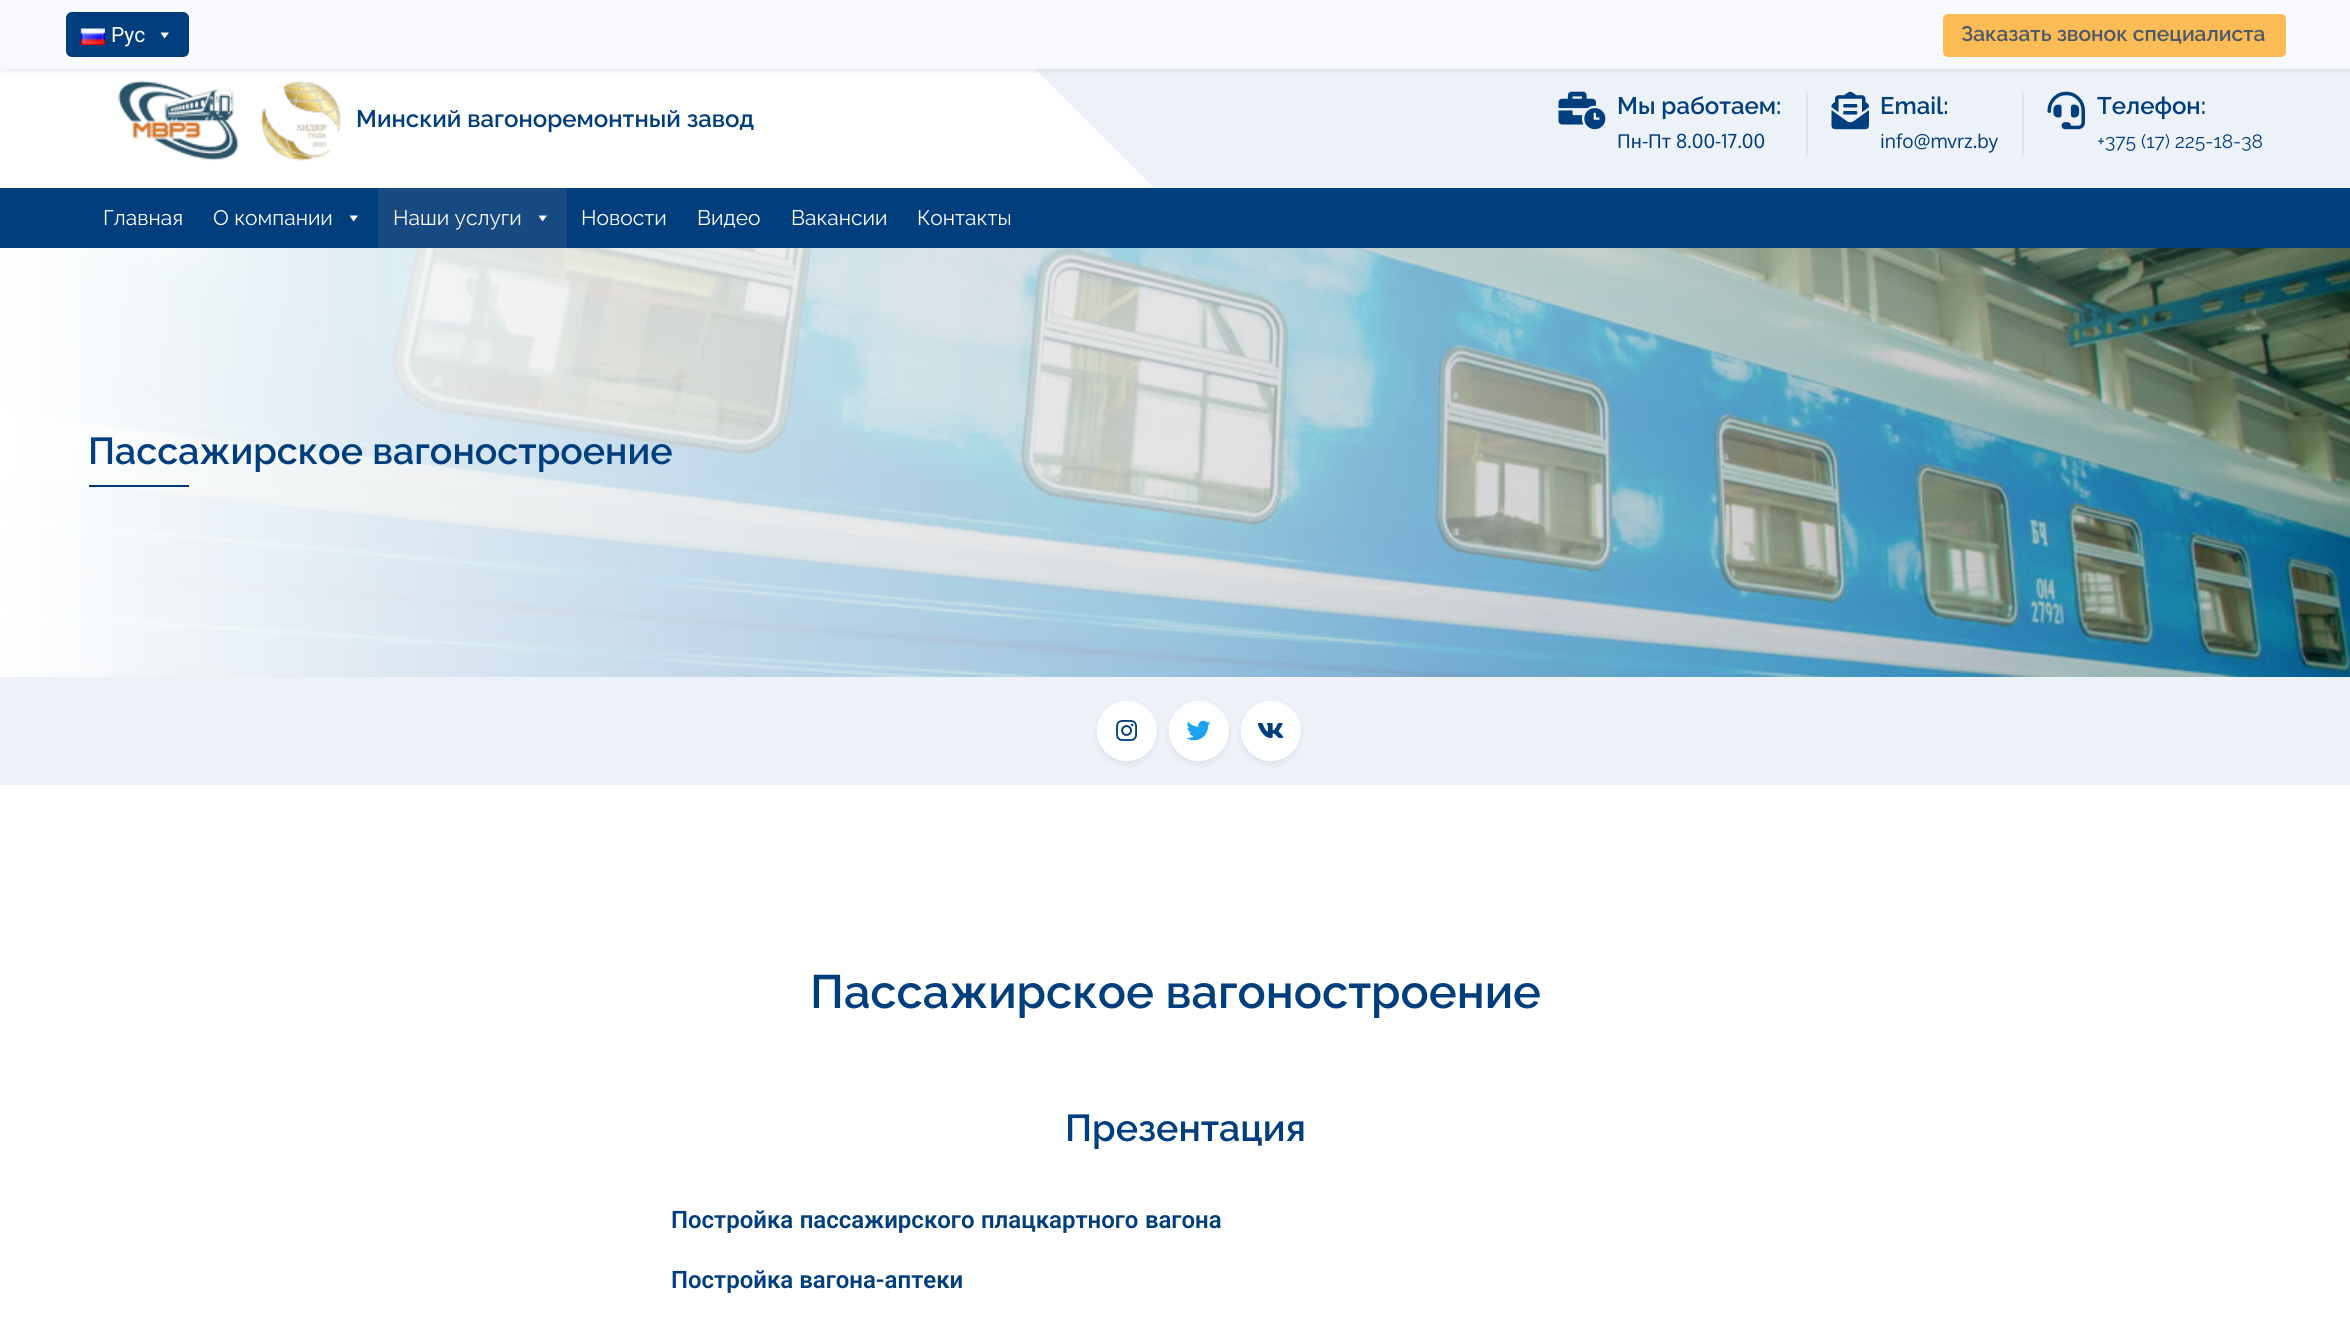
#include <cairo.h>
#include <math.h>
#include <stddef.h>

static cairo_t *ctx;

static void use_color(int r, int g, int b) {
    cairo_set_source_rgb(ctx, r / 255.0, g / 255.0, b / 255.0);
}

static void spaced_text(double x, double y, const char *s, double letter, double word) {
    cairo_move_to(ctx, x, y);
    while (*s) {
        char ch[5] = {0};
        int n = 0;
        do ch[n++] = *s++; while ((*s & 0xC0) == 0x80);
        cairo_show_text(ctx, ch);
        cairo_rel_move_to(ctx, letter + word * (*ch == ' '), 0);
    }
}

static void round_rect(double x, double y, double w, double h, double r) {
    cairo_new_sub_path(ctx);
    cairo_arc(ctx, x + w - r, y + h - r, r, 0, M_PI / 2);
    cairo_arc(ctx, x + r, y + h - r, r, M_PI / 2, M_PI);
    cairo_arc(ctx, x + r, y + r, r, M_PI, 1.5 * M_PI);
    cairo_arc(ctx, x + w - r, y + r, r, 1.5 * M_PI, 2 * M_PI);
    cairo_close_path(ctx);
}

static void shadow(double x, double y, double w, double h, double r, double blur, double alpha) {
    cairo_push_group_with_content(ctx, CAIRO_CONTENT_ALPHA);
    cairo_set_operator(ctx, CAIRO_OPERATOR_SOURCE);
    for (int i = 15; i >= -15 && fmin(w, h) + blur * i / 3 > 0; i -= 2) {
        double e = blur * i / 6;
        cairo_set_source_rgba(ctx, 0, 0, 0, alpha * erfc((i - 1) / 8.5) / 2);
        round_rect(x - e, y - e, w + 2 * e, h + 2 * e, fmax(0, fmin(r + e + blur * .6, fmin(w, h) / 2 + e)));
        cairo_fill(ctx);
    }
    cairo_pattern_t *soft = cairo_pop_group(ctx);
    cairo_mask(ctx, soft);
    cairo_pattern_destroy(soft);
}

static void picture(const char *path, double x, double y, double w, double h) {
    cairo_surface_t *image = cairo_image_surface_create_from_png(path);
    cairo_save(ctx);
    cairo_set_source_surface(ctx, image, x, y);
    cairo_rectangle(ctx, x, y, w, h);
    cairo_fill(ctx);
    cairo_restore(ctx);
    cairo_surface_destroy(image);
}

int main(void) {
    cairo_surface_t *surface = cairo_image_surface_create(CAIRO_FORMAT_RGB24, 2350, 1344);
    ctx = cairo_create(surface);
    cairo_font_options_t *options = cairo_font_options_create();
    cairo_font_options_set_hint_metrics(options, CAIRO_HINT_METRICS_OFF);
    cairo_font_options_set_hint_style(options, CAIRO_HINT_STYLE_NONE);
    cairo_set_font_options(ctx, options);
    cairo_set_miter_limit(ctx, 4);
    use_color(255, 255, 255);
    cairo_paint(ctx);
    use_color(237, 242, 249);
    cairo_rectangle(ctx, 1035, 69, 1315, 119);
    cairo_fill(ctx);
    use_color(255, 255, 255);
    cairo_new_path(ctx);
    cairo_move_to(ctx, 1026, 360);
    cairo_line_to(ctx, 1026, 60);
    cairo_line_to(ctx, 1176, 210);
    cairo_close_path(ctx);
    cairo_fill(ctx);
    picture("img2.png", 118, 80, 223, 81);
    use_color(0, 0, 0);
    shadow(0, 3, 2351, 69, 0, 3, 0.07);
    use_color(249, 250, 253);
    cairo_rectangle(ctx, 0, 0, 2350, 69);
    cairo_fill(ctx);
    use_color(0, 62, 125);
    round_rect(66, 12, 123, 45, 6);
    cairo_fill(ctx);
    picture("img1.png", 80, 28, 25, 17);
    cairo_select_font_face(ctx, "Roboto", CAIRO_FONT_SLANT_NORMAL, CAIRO_FONT_WEIGHT_NORMAL);
    cairo_set_font_size(ctx, 21);
    use_color(255, 255, 255);
    cairo_move_to(ctx, 111, 42);
    cairo_show_text(ctx, "Рус");
    cairo_new_path(ctx);
    cairo_move_to(ctx, 169, 32.5);
    cairo_line_to(ctx, 164.5, 38.5);
    cairo_line_to(ctx, 160.5, 32.5);
    cairo_close_path(ctx);
    cairo_fill(ctx);
    use_color(252, 188, 85);
    round_rect(1944, 15, 341, 41, 4);
    cairo_fill_preserve(ctx);
    cairo_stroke(ctx);
    cairo_select_font_face(ctx, "Raleway SemiBold", CAIRO_FONT_SLANT_NORMAL, CAIRO_FONT_WEIGHT_NORMAL);
    use_color(77, 89, 105);
    cairo_move_to(ctx, 1961, 41);
    cairo_show_text(ctx, "Заказать звонок специалиста");
    cairo_set_font_size(ctx, 24);
    use_color(0, 62, 125);
    cairo_move_to(ctx, 356, 127);
    cairo_show_text(ctx, "Минский вагоноремонтный завод");
    use_color(216, 226, 239);
    cairo_rectangle(ctx, 1806, 92, 2, 64);
    cairo_fill(ctx);
    picture("img3.png", 1558, 91, 48, 39);
    use_color(0, 62, 125);
    cairo_move_to(ctx, 1617, 114);
    cairo_show_text(ctx, "Мы работаем:");
    cairo_select_font_face(ctx, "Roboto", CAIRO_FONT_SLANT_NORMAL, CAIRO_FONT_WEIGHT_NORMAL);
    cairo_set_font_size(ctx, 19.25);
    cairo_move_to(ctx, 1617, 148);
    cairo_show_text(ctx, "Пн");
    cairo_select_font_face(ctx, "Oxygen", CAIRO_FONT_SLANT_NORMAL, CAIRO_FONT_WEIGHT_NORMAL);
    cairo_move_to(ctx, 1642, 148);
    cairo_show_text(ctx, "-");
    cairo_select_font_face(ctx, "Roboto", CAIRO_FONT_SLANT_NORMAL, CAIRO_FONT_WEIGHT_NORMAL);
    cairo_move_to(ctx, 1648, 148);
    cairo_show_text(ctx, "Пт");
    cairo_select_font_face(ctx, "Oxygen", CAIRO_FONT_SLANT_NORMAL, CAIRO_FONT_WEIGHT_NORMAL);
    cairo_move_to(ctx, 1676, 148);
    cairo_show_text(ctx, "8.00-17.00");
    use_color(216, 226, 239);
    cairo_rectangle(ctx, 2022, 92, 2, 64);
    cairo_fill(ctx);
    picture("img4.png", 1831, 91, 38, 39);
    cairo_select_font_face(ctx, "Raleway SemiBold", CAIRO_FONT_SLANT_NORMAL, CAIRO_FONT_WEIGHT_NORMAL);
    cairo_set_font_size(ctx, 24);
    use_color(0, 62, 125);
    cairo_move_to(ctx, 1880, 114);
    cairo_show_text(ctx, "Email:");
    cairo_select_font_face(ctx, "Oxygen", CAIRO_FONT_SLANT_NORMAL, CAIRO_FONT_WEIGHT_NORMAL);
    cairo_set_font_size(ctx, 19.25);
    cairo_move_to(ctx, 1880, 148);
    cairo_show_text(ctx, "info@mvrz.by");
    picture("img5.png", 2047, 91, 38, 39);
    cairo_select_font_face(ctx, "Raleway SemiBold", CAIRO_FONT_SLANT_NORMAL, CAIRO_FONT_WEIGHT_NORMAL);
    cairo_set_font_size(ctx, 24);
    cairo_move_to(ctx, 2097, 114);
    cairo_show_text(ctx, "Телефон:");
    cairo_select_font_face(ctx, "Raleway", CAIRO_FONT_SLANT_NORMAL, CAIRO_FONT_WEIGHT_NORMAL);
    cairo_set_font_size(ctx, 19.25);
    cairo_move_to(ctx, 2097, 148);
    cairo_show_text(ctx, "+375 (17) 225-18-38");
    cairo_rectangle(ctx, 0, 188, 2350, 60);
    cairo_fill(ctx);
    cairo_set_font_size(ctx, 21);
    use_color(255, 255, 255);
    cairo_move_to(ctx, 103, 225);
    cairo_show_text(ctx, "Главная");
    cairo_move_to(ctx, 213, 225);
    cairo_show_text(ctx, "О компании");
    cairo_new_path(ctx);
    cairo_move_to(ctx, 358, 215.5);
    cairo_line_to(ctx, 353.5, 221.5);
    cairo_line_to(ctx, 349.5, 215.5);
    cairo_close_path(ctx);
    cairo_fill(ctx);
    use_color(22, 74, 128);
    cairo_rectangle(ctx, 378, 188, 189, 60);
    cairo_fill(ctx);
    use_color(255, 255, 255);
    cairo_move_to(ctx, 393, 225);
    cairo_show_text(ctx, "Наши услуги");
    cairo_new_path(ctx);
    cairo_move_to(ctx, 547, 215.5);
    cairo_line_to(ctx, 542.5, 221.5);
    cairo_line_to(ctx, 538.5, 215.5);
    cairo_close_path(ctx);
    cairo_fill(ctx);
    cairo_move_to(ctx, 581, 225);
    cairo_show_text(ctx, "Новости");
    cairo_move_to(ctx, 697, 225);
    cairo_show_text(ctx, "Видео");
    cairo_move_to(ctx, 791, 225);
    cairo_show_text(ctx, "Вакансии");
    cairo_move_to(ctx, 917, 225);
    cairo_show_text(ctx, "Контакты");
    picture("img6.png", 0, 248, 2350, 429);
    cairo_select_font_face(ctx, "Raleway SemiBold", CAIRO_FONT_SLANT_NORMAL, CAIRO_FONT_WEIGHT_NORMAL);
    cairo_set_font_size(ctx, 37.5);
    use_color(0, 62, 125);
    cairo_move_to(ctx, 88, 464);
    cairo_show_text(ctx, "Пассажирское вагоностроение");
    use_color(0, 56, 113);
    cairo_rectangle(ctx, 89, 485, 100, 2);
    cairo_fill(ctx);
    use_color(237, 242, 249);
    cairo_rectangle(ctx, 0, 677, 2350, 108);
    cairo_fill(ctx);
    use_color(0, 0, 0);
    shadow(1097, 704, 60, 60, 30, 3, 0.07);
    use_color(255, 255, 255);
    cairo_arc(ctx, 1127, 731, 30, 0, 2 * M_PI);
    cairo_fill(ctx);
    picture("img7.png", 1116, 720, 22, 21);
    use_color(0, 0, 0);
    shadow(1169, 704, 60, 60, 30, 3, 0.07);
    use_color(255, 255, 255);
    cairo_arc(ctx, 1199, 731, 30, 0, 2 * M_PI);
    cairo_fill(ctx);
    picture("img8.png", 1186, 720, 25, 21);
    use_color(0, 0, 0);
    shadow(1241, 704, 60, 60, 30, 3, 0.07);
    use_color(255, 255, 255);
    cairo_arc(ctx, 1271, 731, 30, 0, 2 * M_PI);
    cairo_fill(ctx);
    picture("img9.png", 1257, 723, 27, 15);
    cairo_set_font_size(ctx, 46.9);
    use_color(0, 62, 125);
    cairo_move_to(ctx, 810, 1008);
    cairo_show_text(ctx, "Пассажирское вагоностроение");
    cairo_set_font_size(ctx, 37.5);
    cairo_move_to(ctx, 1065, 1141);
    cairo_show_text(ctx, "Презентация");
    cairo_select_font_face(ctx, "Roboto SemiBold", CAIRO_FONT_SLANT_NORMAL, CAIRO_FONT_WEIGHT_NORMAL);
    cairo_set_font_size(ctx, 24);
    spaced_text(671, 1228, "Постройка пассажирского плацкартного вагона", 0, 0.5);
    cairo_move_to(ctx, 671, 1288);
    cairo_show_text(ctx, "Постройка вагона-аптеки");
    cairo_surface_write_to_png(surface, "result.png");
    cairo_font_options_destroy(options);
    cairo_destroy(ctx);
    cairo_surface_destroy(surface);
    return 0;
}
